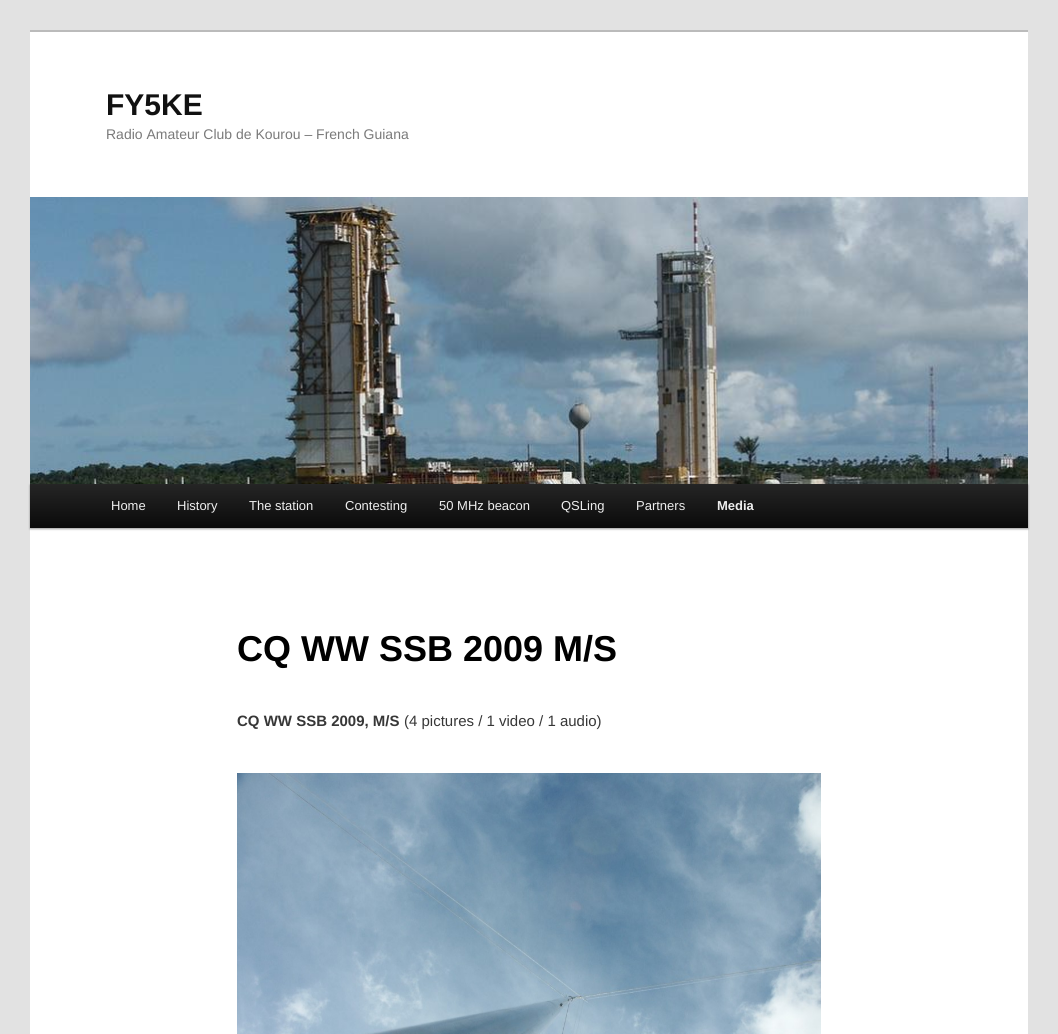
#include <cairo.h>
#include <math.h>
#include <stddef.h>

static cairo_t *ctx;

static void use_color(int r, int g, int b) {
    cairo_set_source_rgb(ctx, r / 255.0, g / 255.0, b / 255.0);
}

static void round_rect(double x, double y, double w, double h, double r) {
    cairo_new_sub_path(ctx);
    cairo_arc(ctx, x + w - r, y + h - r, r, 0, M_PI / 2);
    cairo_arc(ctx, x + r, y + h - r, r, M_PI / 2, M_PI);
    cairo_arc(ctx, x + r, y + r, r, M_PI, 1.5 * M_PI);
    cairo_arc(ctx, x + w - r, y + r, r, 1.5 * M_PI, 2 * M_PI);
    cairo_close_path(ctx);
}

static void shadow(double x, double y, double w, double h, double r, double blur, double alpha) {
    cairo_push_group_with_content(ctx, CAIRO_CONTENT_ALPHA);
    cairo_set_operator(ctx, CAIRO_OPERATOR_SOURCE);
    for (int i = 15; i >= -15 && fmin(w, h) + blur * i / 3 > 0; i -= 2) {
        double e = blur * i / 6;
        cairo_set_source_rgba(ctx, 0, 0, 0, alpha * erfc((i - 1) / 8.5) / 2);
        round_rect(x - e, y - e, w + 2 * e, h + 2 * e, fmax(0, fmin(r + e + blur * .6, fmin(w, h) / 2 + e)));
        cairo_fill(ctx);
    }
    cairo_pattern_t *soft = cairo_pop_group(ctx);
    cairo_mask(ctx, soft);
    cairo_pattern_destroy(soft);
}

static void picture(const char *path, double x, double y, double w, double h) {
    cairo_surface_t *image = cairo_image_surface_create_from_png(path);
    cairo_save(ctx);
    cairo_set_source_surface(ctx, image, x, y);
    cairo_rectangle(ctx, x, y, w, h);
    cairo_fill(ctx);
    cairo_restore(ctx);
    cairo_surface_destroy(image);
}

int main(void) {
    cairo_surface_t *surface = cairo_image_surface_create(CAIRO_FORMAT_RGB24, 1058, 1034);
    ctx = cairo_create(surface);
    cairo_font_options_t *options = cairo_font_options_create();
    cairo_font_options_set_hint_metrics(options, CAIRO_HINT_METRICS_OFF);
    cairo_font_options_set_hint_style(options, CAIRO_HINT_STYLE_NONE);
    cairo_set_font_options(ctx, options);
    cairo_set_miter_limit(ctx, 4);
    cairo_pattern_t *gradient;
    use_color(226, 226, 226);
    cairo_paint(ctx);
    use_color(255, 255, 255);
    cairo_rectangle(ctx, 30, 32, 998, 1002);
    cairo_fill(ctx);
    use_color(187, 187, 187);
    cairo_rectangle(ctx, 30, 30, 998, 2);
    cairo_fill(ctx);
    cairo_select_font_face(ctx, "Liberation Sans", CAIRO_FONT_SLANT_NORMAL, CAIRO_FONT_WEIGHT_BOLD);
    cairo_set_font_size(ctx, 30);
    use_color(17, 17, 17);
    cairo_move_to(ctx, 106, 115);
    cairo_show_text(ctx, "FY5KE");
    cairo_select_font_face(ctx, "Liberation Sans", CAIRO_FONT_SLANT_NORMAL, CAIRO_FONT_WEIGHT_NORMAL);
    cairo_set_font_size(ctx, 14);
    use_color(122, 122, 122);
    cairo_move_to(ctx, 106, 139);
    cairo_show_text(ctx, "Radio Amateur Club de Kourou – French Guiana");
    use_color(0, 0, 0);
    shadow(30, 485, 998, 44, 0, 1, 0.4);
    picture("img1.png", 30, 197, 998, 287);
    gradient = cairo_pattern_create_linear(529, 484, 529, 528);
    cairo_pattern_add_color_stop_rgba(gradient, 0, 0.145, 0.145, 0.145, 1);
    cairo_pattern_add_color_stop_rgba(gradient, 1, 0.039, 0.039, 0.039, 1);
    cairo_set_source(ctx, gradient);
    cairo_pattern_destroy(gradient);
    cairo_rectangle(ctx, 30, 484, 998, 44);
    cairo_fill(ctx);
    cairo_set_font_size(ctx, 13);
    use_color(238, 238, 238);
    cairo_move_to(ctx, 111, 510);
    cairo_show_text(ctx, "Home");
    cairo_move_to(ctx, 177, 510);
    cairo_show_text(ctx, "History");
    cairo_move_to(ctx, 249, 510);
    cairo_show_text(ctx, "The station");
    cairo_move_to(ctx, 345, 510);
    cairo_show_text(ctx, "Contesting");
    cairo_move_to(ctx, 439, 510);
    cairo_show_text(ctx, "50 MHz beacon");
    cairo_move_to(ctx, 561, 510);
    cairo_show_text(ctx, "QSLing");
    cairo_move_to(ctx, 636, 510);
    cairo_show_text(ctx, "Partners");
    cairo_select_font_face(ctx, "Liberation Sans", CAIRO_FONT_SLANT_NORMAL, CAIRO_FONT_WEIGHT_BOLD);
    cairo_move_to(ctx, 717, 510);
    cairo_show_text(ctx, "Media");
    cairo_set_font_size(ctx, 36);
    use_color(0, 0, 0);
    cairo_move_to(ctx, 237, 661);
    cairo_show_text(ctx, "CQ WW SSB 2009 M/S");
    cairo_set_font_size(ctx, 15);
    use_color(55, 55, 55);
    cairo_move_to(ctx, 237, 726);
    cairo_show_text(ctx, "CQ WW SSB 2009, M/S");
    cairo_select_font_face(ctx, "Liberation Sans", CAIRO_FONT_SLANT_NORMAL, CAIRO_FONT_WEIGHT_NORMAL);
    cairo_move_to(ctx, 404, 726);
    cairo_show_text(ctx, "(4 pictures / 1 video / 1 audio)");
    picture("img2.png", 237, 773, 584, 261);
    cairo_surface_write_to_png(surface, "result.png");
    cairo_font_options_destroy(options);
    cairo_destroy(ctx);
    cairo_surface_destroy(surface);
    return 0;
}
